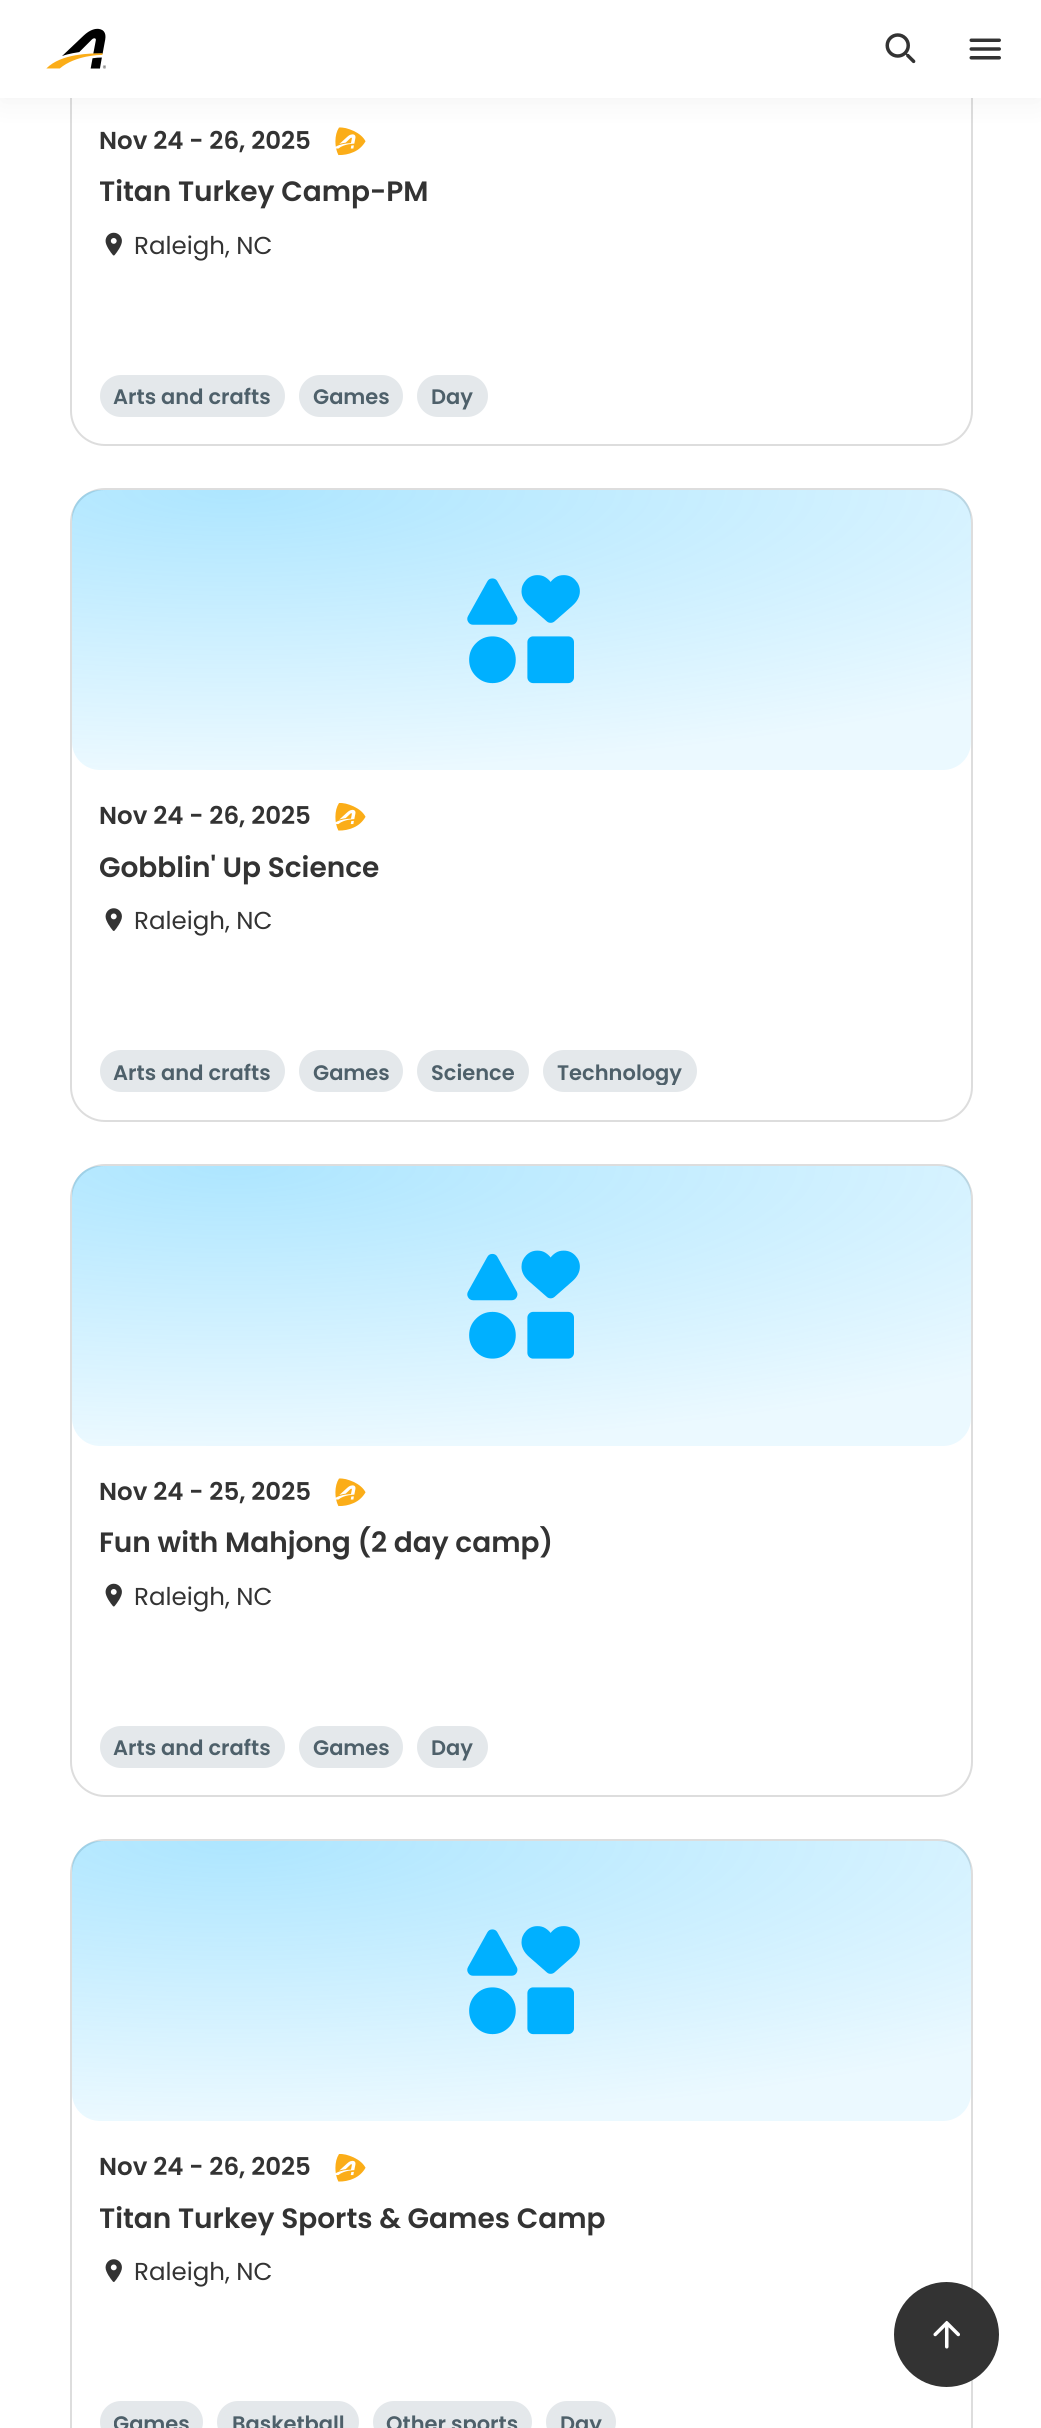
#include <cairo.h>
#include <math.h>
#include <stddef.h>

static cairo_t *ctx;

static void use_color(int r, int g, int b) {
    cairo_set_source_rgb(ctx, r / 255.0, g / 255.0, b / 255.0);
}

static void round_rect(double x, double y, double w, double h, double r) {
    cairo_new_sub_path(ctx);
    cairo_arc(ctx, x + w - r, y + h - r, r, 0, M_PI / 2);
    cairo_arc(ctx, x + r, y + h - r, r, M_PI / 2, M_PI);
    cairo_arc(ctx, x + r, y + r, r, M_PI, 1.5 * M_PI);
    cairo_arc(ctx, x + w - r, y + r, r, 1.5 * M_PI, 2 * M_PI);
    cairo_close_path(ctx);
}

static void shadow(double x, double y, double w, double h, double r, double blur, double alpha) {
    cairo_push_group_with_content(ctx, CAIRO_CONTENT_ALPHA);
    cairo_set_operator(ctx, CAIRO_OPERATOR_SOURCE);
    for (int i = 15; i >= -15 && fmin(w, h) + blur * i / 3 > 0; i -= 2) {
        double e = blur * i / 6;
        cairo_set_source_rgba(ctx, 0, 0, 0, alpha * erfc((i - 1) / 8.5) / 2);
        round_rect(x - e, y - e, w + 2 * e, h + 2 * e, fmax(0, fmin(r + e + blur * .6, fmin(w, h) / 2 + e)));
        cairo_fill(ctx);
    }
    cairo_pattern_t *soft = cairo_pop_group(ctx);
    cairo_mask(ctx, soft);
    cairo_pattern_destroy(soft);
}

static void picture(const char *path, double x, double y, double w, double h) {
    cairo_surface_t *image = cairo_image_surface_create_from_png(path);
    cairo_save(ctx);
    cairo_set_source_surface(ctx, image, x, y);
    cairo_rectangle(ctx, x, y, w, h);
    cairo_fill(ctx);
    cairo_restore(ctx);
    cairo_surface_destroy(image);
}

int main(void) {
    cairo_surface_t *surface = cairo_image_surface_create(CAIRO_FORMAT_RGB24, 1041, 2428);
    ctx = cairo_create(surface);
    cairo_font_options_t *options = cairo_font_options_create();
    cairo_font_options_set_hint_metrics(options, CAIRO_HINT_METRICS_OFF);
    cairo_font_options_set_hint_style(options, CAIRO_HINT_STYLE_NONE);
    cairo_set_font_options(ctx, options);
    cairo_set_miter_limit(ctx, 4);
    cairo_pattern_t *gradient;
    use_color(255, 255, 255);
    cairo_paint(ctx);
    round_rect(71, -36, 901, 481, 34);
    use_color(221, 221, 221);
    cairo_stroke(ctx);
    picture("img4.png", 335, 127, 31, 29);
    use_color(0, 0, 0);
    shadow(0, 4, 1041, 98, 0, 14, 0.05);
    use_color(255, 255, 255);
    cairo_rectangle(ctx, 0, 0, 1041, 98);
    cairo_fill(ctx);
    picture("img1.png", 46, 28, 60, 41);
    picture("img2.png", 885, 33, 31, 31);
    picture("img3.png", 969, 38, 32, 22);
    cairo_select_font_face(ctx, "Poppins SemiBold", CAIRO_FONT_SLANT_NORMAL, CAIRO_FONT_WEIGHT_NORMAL);
    cairo_set_font_size(ctx, 24.5);
    use_color(51, 51, 51);
    cairo_move_to(ctx, 99, 149);
    cairo_show_text(ctx, "Nov 24 - 26, 2025");
    cairo_save(ctx);
    cairo_rectangle(ctx, 100, 172, 843, 42);
    cairo_clip(ctx);
    cairo_set_font_size(ctx, 28);
    cairo_move_to(ctx, 99, 201);
    cairo_show_text(ctx, "Titan Turkey Camp-PM");
    cairo_restore(ctx);
    picture("img5.png", 105, 232, 17, 24);
    cairo_select_font_face(ctx, "Poppins", CAIRO_FONT_SLANT_NORMAL, CAIRO_FONT_WEIGHT_NORMAL);
    cairo_move_to(ctx, 134, 254);
    cairo_show_text(ctx, "Raleigh, NC");
    use_color(228, 232, 235);
    round_rect(100, 375, 185, 42, 21);
    cairo_fill(ctx);
    cairo_select_font_face(ctx, "Poppins SemiBold", CAIRO_FONT_SLANT_NORMAL, CAIRO_FONT_WEIGHT_NORMAL);
    cairo_set_font_size(ctx, 21);
    use_color(78, 96, 106);
    cairo_move_to(ctx, 113, 404);
    cairo_show_text(ctx, "Arts and crafts");
    use_color(228, 232, 235);
    round_rect(299, 375, 104, 42, 21);
    cairo_fill(ctx);
    use_color(78, 96, 106);
    cairo_move_to(ctx, 313, 404);
    cairo_show_text(ctx, "Games");
    use_color(228, 232, 235);
    round_rect(417, 375, 71, 42, 21);
    cairo_fill(ctx);
    use_color(78, 96, 106);
    cairo_move_to(ctx, 431, 404);
    cairo_show_text(ctx, "Day");
    round_rect(71, 489, 901, 632, 34);
    use_color(221, 221, 221);
    cairo_stroke(ctx);
    gradient = cairo_pattern_create_radial(0, 0, 0, 0, 0, 1);
    cairo_pattern_set_matrix(gradient, &(cairo_matrix_t){1.0 / 1107, 0, 0, 1.0 / 280, -1.0 * 234 / 1107, -1.0 * 490 / 280});
    cairo_pattern_add_color_stop_rgba(gradient, 0, 0, 0.69, 1, 0.32);
    cairo_pattern_add_color_stop_rgba(gradient, 1, 0, 0.69, 1, 0.08);
    cairo_set_source(ctx, gradient);
    cairo_pattern_destroy(gradient);
    round_rect(72, 490, 899, 280, 28);
    cairo_fill(ctx);
    picture("img6.png", 467, 575, 113, 109);
    cairo_set_font_size(ctx, 24.5);
    use_color(51, 51, 51);
    cairo_move_to(ctx, 99, 824);
    cairo_show_text(ctx, "Nov 24 - 26, 2025");
    picture("img7.png", 335, 803, 31, 28);
    cairo_save(ctx);
    cairo_rectangle(ctx, 100, 847, 843, 42);
    cairo_clip(ctx);
    cairo_set_font_size(ctx, 28);
    cairo_move_to(ctx, 99, 877);
    cairo_show_text(ctx, "Gobblin' Up Science");
    cairo_restore(ctx);
    picture("img8.png", 105, 908, 17, 23);
    cairo_select_font_face(ctx, "Poppins", CAIRO_FONT_SLANT_NORMAL, CAIRO_FONT_WEIGHT_NORMAL);
    cairo_move_to(ctx, 134, 929);
    cairo_show_text(ctx, "Raleigh, NC");
    use_color(228, 232, 235);
    round_rect(100, 1050, 185, 42, 21);
    cairo_fill(ctx);
    cairo_select_font_face(ctx, "Poppins SemiBold", CAIRO_FONT_SLANT_NORMAL, CAIRO_FONT_WEIGHT_NORMAL);
    cairo_set_font_size(ctx, 21);
    use_color(78, 96, 106);
    cairo_move_to(ctx, 113, 1080);
    cairo_show_text(ctx, "Arts and crafts");
    use_color(228, 232, 235);
    round_rect(299, 1050, 104, 42, 21);
    cairo_fill(ctx);
    use_color(78, 96, 106);
    cairo_move_to(ctx, 313, 1080);
    cairo_show_text(ctx, "Games");
    use_color(228, 232, 235);
    round_rect(417, 1050, 112, 42, 21);
    cairo_fill(ctx);
    use_color(78, 96, 106);
    cairo_move_to(ctx, 431, 1080);
    cairo_show_text(ctx, "Science");
    use_color(228, 232, 235);
    round_rect(543, 1050, 154, 42, 21);
    cairo_fill(ctx);
    cairo_save(ctx);
    cairo_rectangle(ctx, 557, 1057, 126, 28);
    cairo_clip(ctx);
    use_color(78, 96, 106);
    cairo_move_to(ctx, 557, 1080);
    cairo_show_text(ctx, "Technology");
    cairo_restore(ctx);
    round_rect(71, 1165, 901, 631, 34);
    use_color(221, 221, 221);
    cairo_stroke(ctx);
    gradient = cairo_pattern_create_radial(0, 0, 0, 0, 0, 1);
    cairo_pattern_set_matrix(gradient, &(cairo_matrix_t){1.0 / 1107, 0, 0, 1.0 / 280, -1.0 * 234 / 1107, -1.0 * 1166 / 280});
    cairo_pattern_add_color_stop_rgba(gradient, 0, 0, 0.69, 1, 0.32);
    cairo_pattern_add_color_stop_rgba(gradient, 1, 0, 0.69, 1, 0.08);
    cairo_set_source(ctx, gradient);
    cairo_pattern_destroy(gradient);
    round_rect(72, 1166, 899, 280, 28);
    cairo_fill(ctx);
    picture("img9.png", 467, 1250, 113, 109);
    cairo_set_font_size(ctx, 24.5);
    use_color(51, 51, 51);
    cairo_move_to(ctx, 99, 1500);
    cairo_show_text(ctx, "Nov 24 - 25, 2025");
    picture("img4.png", 335, 1478, 31, 29);
    cairo_set_font_size(ctx, 28);
    cairo_move_to(ctx, 99, 1552);
    cairo_show_text(ctx, "Fun with Mahjong (2 day camp)");
    picture("img5.png", 105, 1583, 17, 24);
    cairo_select_font_face(ctx, "Poppins", CAIRO_FONT_SLANT_NORMAL, CAIRO_FONT_WEIGHT_NORMAL);
    cairo_set_font_size(ctx, 24.5);
    cairo_move_to(ctx, 134, 1605);
    cairo_show_text(ctx, "Raleigh, NC");
    use_color(228, 232, 235);
    round_rect(100, 1726, 185, 42, 21);
    cairo_fill(ctx);
    cairo_select_font_face(ctx, "Poppins SemiBold", CAIRO_FONT_SLANT_NORMAL, CAIRO_FONT_WEIGHT_NORMAL);
    cairo_set_font_size(ctx, 21);
    use_color(78, 96, 106);
    cairo_move_to(ctx, 113, 1755);
    cairo_show_text(ctx, "Arts and crafts");
    use_color(228, 232, 235);
    round_rect(299, 1726, 104, 42, 21);
    cairo_fill(ctx);
    use_color(78, 96, 106);
    cairo_move_to(ctx, 313, 1755);
    cairo_show_text(ctx, "Games");
    use_color(228, 232, 235);
    round_rect(417, 1726, 71, 42, 21);
    cairo_fill(ctx);
    use_color(78, 96, 106);
    cairo_move_to(ctx, 431, 1755);
    cairo_show_text(ctx, "Day");
    round_rect(71, 1840, 901, 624, 34);
    use_color(221, 221, 221);
    cairo_stroke(ctx);
    gradient = cairo_pattern_create_radial(0, 0, 0, 0, 0, 1);
    cairo_pattern_set_matrix(gradient, &(cairo_matrix_t){1.0 / 1107, 0, 0, 1.0 / 280, -1.0 * 234 / 1107, -1.0 * 1841 / 280});
    cairo_pattern_add_color_stop_rgba(gradient, 0, 0, 0.69, 1, 0.32);
    cairo_pattern_add_color_stop_rgba(gradient, 1, 0, 0.69, 1, 0.08);
    cairo_set_source(ctx, gradient);
    cairo_pattern_destroy(gradient);
    round_rect(72, 1841, 899, 280, 28);
    cairo_fill(ctx);
    picture("img6.png", 467, 1926, 113, 109);
    cairo_set_font_size(ctx, 24.5);
    use_color(51, 51, 51);
    cairo_move_to(ctx, 99, 2175);
    cairo_show_text(ctx, "Nov 24 - 26, 2025");
    picture("img7.png", 335, 2154, 31, 28);
    cairo_save(ctx);
    cairo_rectangle(ctx, 100, 2198, 843, 42);
    cairo_clip(ctx);
    cairo_set_font_size(ctx, 28);
    cairo_move_to(ctx, 99, 2228);
    cairo_show_text(ctx, "Titan Turkey Sports & Games Camp");
    cairo_restore(ctx);
    picture("img8.png", 105, 2259, 17, 23);
    cairo_select_font_face(ctx, "Poppins", CAIRO_FONT_SLANT_NORMAL, CAIRO_FONT_WEIGHT_NORMAL);
    cairo_move_to(ctx, 134, 2280);
    cairo_show_text(ctx, "Raleigh, NC");
    use_color(228, 232, 235);
    round_rect(100, 2401, 103, 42, 21);
    cairo_fill(ctx);
    cairo_save(ctx);
    cairo_rectangle(ctx, 114, 2408, 75, 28);
    cairo_clip(ctx);
    cairo_select_font_face(ctx, "Poppins SemiBold", CAIRO_FONT_SLANT_NORMAL, CAIRO_FONT_WEIGHT_NORMAL);
    cairo_set_font_size(ctx, 21);
    use_color(78, 96, 106);
    cairo_move_to(ctx, 113, 2431);
    cairo_show_text(ctx, "Games");
    cairo_restore(ctx);
    round_rect(217, 2401, 142, 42, 21);
    cairo_fill(ctx);
    cairo_select_font_face(ctx, "Poppins SemiBold", CAIRO_FONT_SLANT_NORMAL, CAIRO_FONT_WEIGHT_NORMAL);
    cairo_set_font_size(ctx, 21);
    use_color(78, 96, 106);
    cairo_move_to(ctx, 232, 2431);
    cairo_show_text(ctx, "Basketball");
    use_color(228, 232, 235);
    round_rect(373, 2401, 159, 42, 21);
    cairo_fill(ctx);
    use_color(78, 96, 106);
    cairo_move_to(ctx, 386, 2431);
    cairo_show_text(ctx, "Other sports");
    use_color(228, 232, 235);
    round_rect(546, 2401, 70, 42, 21);
    cairo_fill(ctx);
    use_color(78, 96, 106);
    cairo_move_to(ctx, 560, 2431);
    cairo_show_text(ctx, "Day");
    use_color(51, 51, 51);
    cairo_new_path(ctx);
    cairo_arc(ctx, 946.5, 2334.5, 52.5, 0, 2 * M_PI);
    cairo_fill(ctx);
    picture("img10.png", 933, 2320, 27, 29);
    cairo_surface_write_to_png(surface, "result.png");
    cairo_font_options_destroy(options);
    cairo_destroy(ctx);
    cairo_surface_destroy(surface);
    return 0;
}
